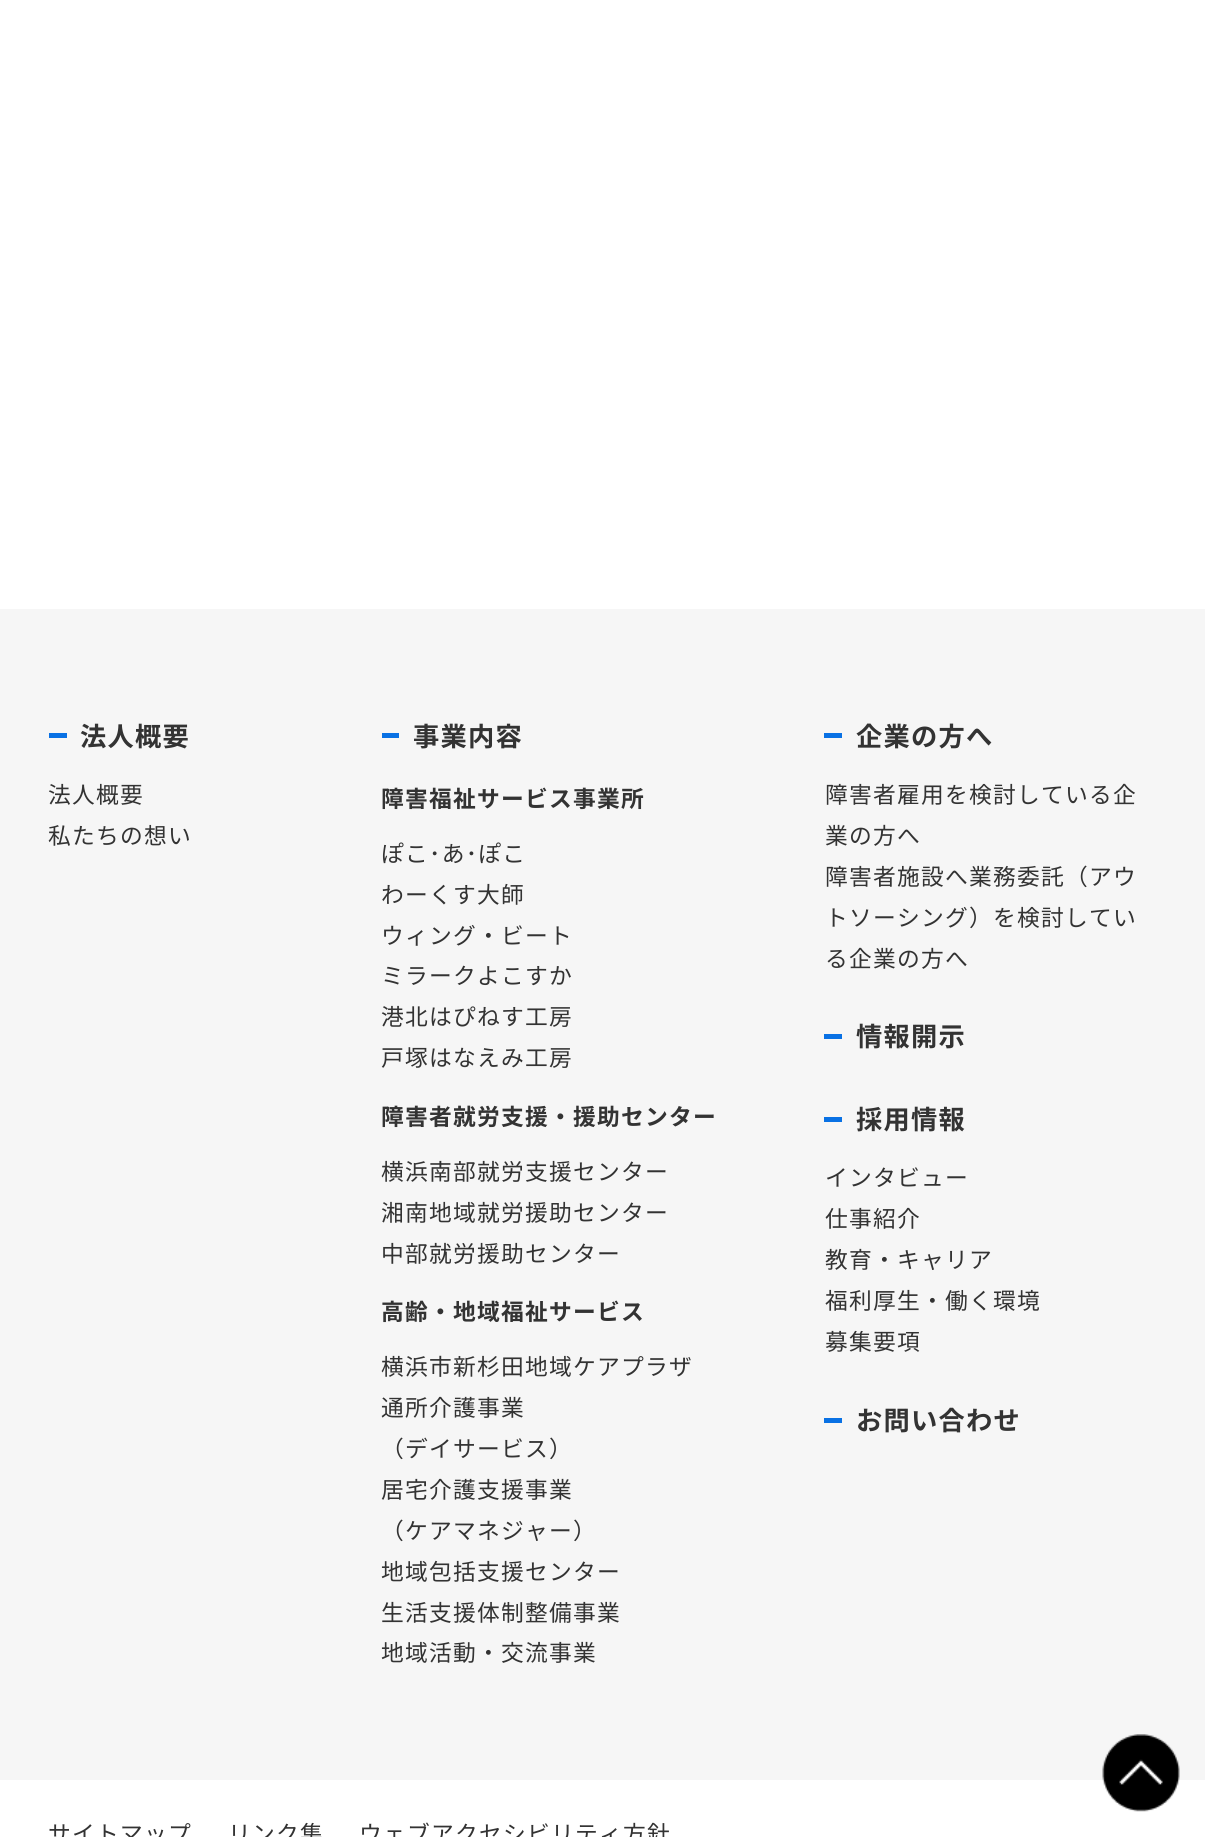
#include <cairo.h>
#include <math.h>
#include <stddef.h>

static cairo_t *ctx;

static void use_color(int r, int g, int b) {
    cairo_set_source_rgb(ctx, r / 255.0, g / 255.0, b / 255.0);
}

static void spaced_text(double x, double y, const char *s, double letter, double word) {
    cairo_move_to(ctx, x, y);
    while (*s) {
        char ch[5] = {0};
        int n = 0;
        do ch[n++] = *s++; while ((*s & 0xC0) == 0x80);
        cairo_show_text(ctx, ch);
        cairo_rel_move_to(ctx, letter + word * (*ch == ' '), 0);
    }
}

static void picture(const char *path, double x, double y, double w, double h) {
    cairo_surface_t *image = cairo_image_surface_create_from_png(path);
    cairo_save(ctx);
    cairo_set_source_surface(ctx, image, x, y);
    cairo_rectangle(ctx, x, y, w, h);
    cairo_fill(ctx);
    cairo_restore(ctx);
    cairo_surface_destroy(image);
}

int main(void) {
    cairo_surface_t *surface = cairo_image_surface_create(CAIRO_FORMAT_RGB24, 1205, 1837);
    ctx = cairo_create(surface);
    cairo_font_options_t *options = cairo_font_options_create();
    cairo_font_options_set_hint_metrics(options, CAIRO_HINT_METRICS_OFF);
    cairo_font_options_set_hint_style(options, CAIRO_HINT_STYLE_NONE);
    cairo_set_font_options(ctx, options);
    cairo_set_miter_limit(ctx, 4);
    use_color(255, 255, 255);
    cairo_paint(ctx);
    use_color(246, 246, 246);
    cairo_rectangle(ctx, 0, 609, 1205, 1171);
    cairo_fill(ctx);
    use_color(9, 113, 228);
    cairo_rectangle(ctx, 49, 733, 18, 5);
    cairo_fill(ctx);
    cairo_select_font_face(ctx, "Noto Sans JP", CAIRO_FONT_SLANT_NORMAL, CAIRO_FONT_WEIGHT_BOLD);
    cairo_set_font_size(ctx, 26.25);
    use_color(51, 51, 51);
    spaced_text(80, 746, "法人概要", 1.25, 0);
    cairo_select_font_face(ctx, "Noto Sans JP", CAIRO_FONT_SLANT_NORMAL, CAIRO_FONT_WEIGHT_NORMAL);
    cairo_set_font_size(ctx, 22.75);
    spaced_text(48, 803, "法人概要", 1.25, 0);
    spaced_text(48, 844, "私たちの想い", 1.25, 0);
    use_color(9, 113, 228);
    cairo_rectangle(ctx, 382, 733, 17, 5);
    cairo_fill(ctx);
    cairo_select_font_face(ctx, "Noto Sans JP", CAIRO_FONT_SLANT_NORMAL, CAIRO_FONT_WEIGHT_BOLD);
    cairo_set_font_size(ctx, 26.25);
    use_color(51, 51, 51);
    spaced_text(413, 746, "事業内容", 1.25, 0);
    cairo_set_font_size(ctx, 22.75);
    spaced_text(381, 807, "障害福祉サービス事業所", 1.25, 0);
    cairo_select_font_face(ctx, "Noto Sans JP", CAIRO_FONT_SLANT_NORMAL, CAIRO_FONT_WEIGHT_NORMAL);
    spaced_text(381, 862, "ぽこ･あ･ぽこ", 1.25, 0);
    spaced_text(381, 903, "わーくす大師", 1.25, 0);
    spaced_text(381, 944, "ウィング・ビート", 1.25, 0);
    spaced_text(381, 984, "ミラークよこすか", 1.25, 0);
    spaced_text(381, 1025, "港北はぴねす工房", 1.25, 0);
    spaced_text(381, 1066, "戸塚はなえみ工房", 1.25, 0);
    cairo_select_font_face(ctx, "Noto Sans JP", CAIRO_FONT_SLANT_NORMAL, CAIRO_FONT_WEIGHT_BOLD);
    spaced_text(381, 1125, "障害者就労支援・援助センター", 1.25, 0);
    cairo_select_font_face(ctx, "Noto Sans JP", CAIRO_FONT_SLANT_NORMAL, CAIRO_FONT_WEIGHT_NORMAL);
    spaced_text(381, 1180, "横浜南部就労支援センター", 1.25, 0);
    spaced_text(381, 1221, "湘南地域就労援助センター", 1.25, 0);
    spaced_text(381, 1262, "中部就労援助センター", 1.25, 0);
    cairo_select_font_face(ctx, "Noto Sans JP", CAIRO_FONT_SLANT_NORMAL, CAIRO_FONT_WEIGHT_BOLD);
    spaced_text(381, 1320, "高齢・地域福祉サービス", 1.25, 0);
    cairo_select_font_face(ctx, "Noto Sans JP", CAIRO_FONT_SLANT_NORMAL, CAIRO_FONT_WEIGHT_NORMAL);
    spaced_text(381, 1375, "横浜市新杉田地域ケアプラザ", 1.25, 0);
    spaced_text(381, 1416, "通所介護事業", 1.25, 0);
    spaced_text(381, 1457, "（デイサービス）", 1.25, 0);
    spaced_text(381, 1498, "居宅介護支援事業", 1.25, 0);
    spaced_text(381, 1539, "（ケアマネジャー）", 1.25, 0);
    spaced_text(381, 1580, "地域包括支援センター", 1.25, 0);
    spaced_text(381, 1621, "生活支援体制整備事業", 1.25, 0);
    spaced_text(381, 1661, "地域活動・交流事業", 1.25, 0);
    use_color(9, 113, 228);
    cairo_rectangle(ctx, 824, 733, 18, 5);
    cairo_fill(ctx);
    cairo_select_font_face(ctx, "Noto Sans JP", CAIRO_FONT_SLANT_NORMAL, CAIRO_FONT_WEIGHT_BOLD);
    cairo_set_font_size(ctx, 26.25);
    use_color(51, 51, 51);
    spaced_text(856, 746, "企業の方へ", 1.25, 0);
    cairo_select_font_face(ctx, "Noto Sans JP", CAIRO_FONT_SLANT_NORMAL, CAIRO_FONT_WEIGHT_NORMAL);
    cairo_set_font_size(ctx, 22.75);
    spaced_text(825, 803, "障害者雇用を検討している企", 1.25, 0);
    spaced_text(825, 844, "業の方へ", 1.25, 0);
    spaced_text(825, 885, "障害者施設へ業務委託（アウ", 1.25, 0);
    spaced_text(825, 926, "トソーシング）を検討してい", 1.25, 0);
    spaced_text(825, 967, "る企業の方へ", 1.25, 0);
    use_color(9, 113, 228);
    cairo_rectangle(ctx, 824, 1034, 18, 5);
    cairo_fill(ctx);
    cairo_select_font_face(ctx, "Noto Sans JP", CAIRO_FONT_SLANT_NORMAL, CAIRO_FONT_WEIGHT_BOLD);
    cairo_set_font_size(ctx, 26.25);
    use_color(51, 51, 51);
    spaced_text(856, 1046, "情報開示", 1.25, 0);
    use_color(9, 113, 228);
    cairo_rectangle(ctx, 824, 1117, 18, 5);
    cairo_fill(ctx);
    use_color(51, 51, 51);
    spaced_text(856, 1129, "採用情報", 1.25, 0);
    cairo_select_font_face(ctx, "Noto Sans JP", CAIRO_FONT_SLANT_NORMAL, CAIRO_FONT_WEIGHT_NORMAL);
    cairo_set_font_size(ctx, 22.75);
    spaced_text(825, 1186, "インタビュー", 1.25, 0);
    spaced_text(825, 1227, "仕事紹介", 1.25, 0);
    spaced_text(825, 1268, "教育・キャリア", 1.25, 0);
    spaced_text(825, 1309, "福利厚生・働く環境", 1.25, 0);
    spaced_text(825, 1350, "募集要項", 1.25, 0);
    use_color(9, 113, 228);
    cairo_rectangle(ctx, 824, 1418, 18, 5);
    cairo_fill(ctx);
    cairo_select_font_face(ctx, "Noto Sans JP", CAIRO_FONT_SLANT_NORMAL, CAIRO_FONT_WEIGHT_BOLD);
    cairo_set_font_size(ctx, 26.25);
    use_color(51, 51, 51);
    spaced_text(856, 1430, "お問い合わせ", 1.25, 0);
    cairo_select_font_face(ctx, "Noto Sans JP", CAIRO_FONT_SLANT_NORMAL, CAIRO_FONT_WEIGHT_NORMAL);
    cairo_set_font_size(ctx, 22.75);
    spaced_text(48, 1842, "サイトマップ", 1.25, 0);
    spaced_text(228, 1842, "リンク集", 1.25, 0);
    spaced_text(359, 1842, "ウェブアクセシビリティ方針", 1.25, 0);
    picture("img1.png", 1102, 1734, 78, 78);
    cairo_surface_write_to_png(surface, "result.png");
    cairo_font_options_destroy(options);
    cairo_destroy(ctx);
    cairo_surface_destroy(surface);
    return 0;
}
